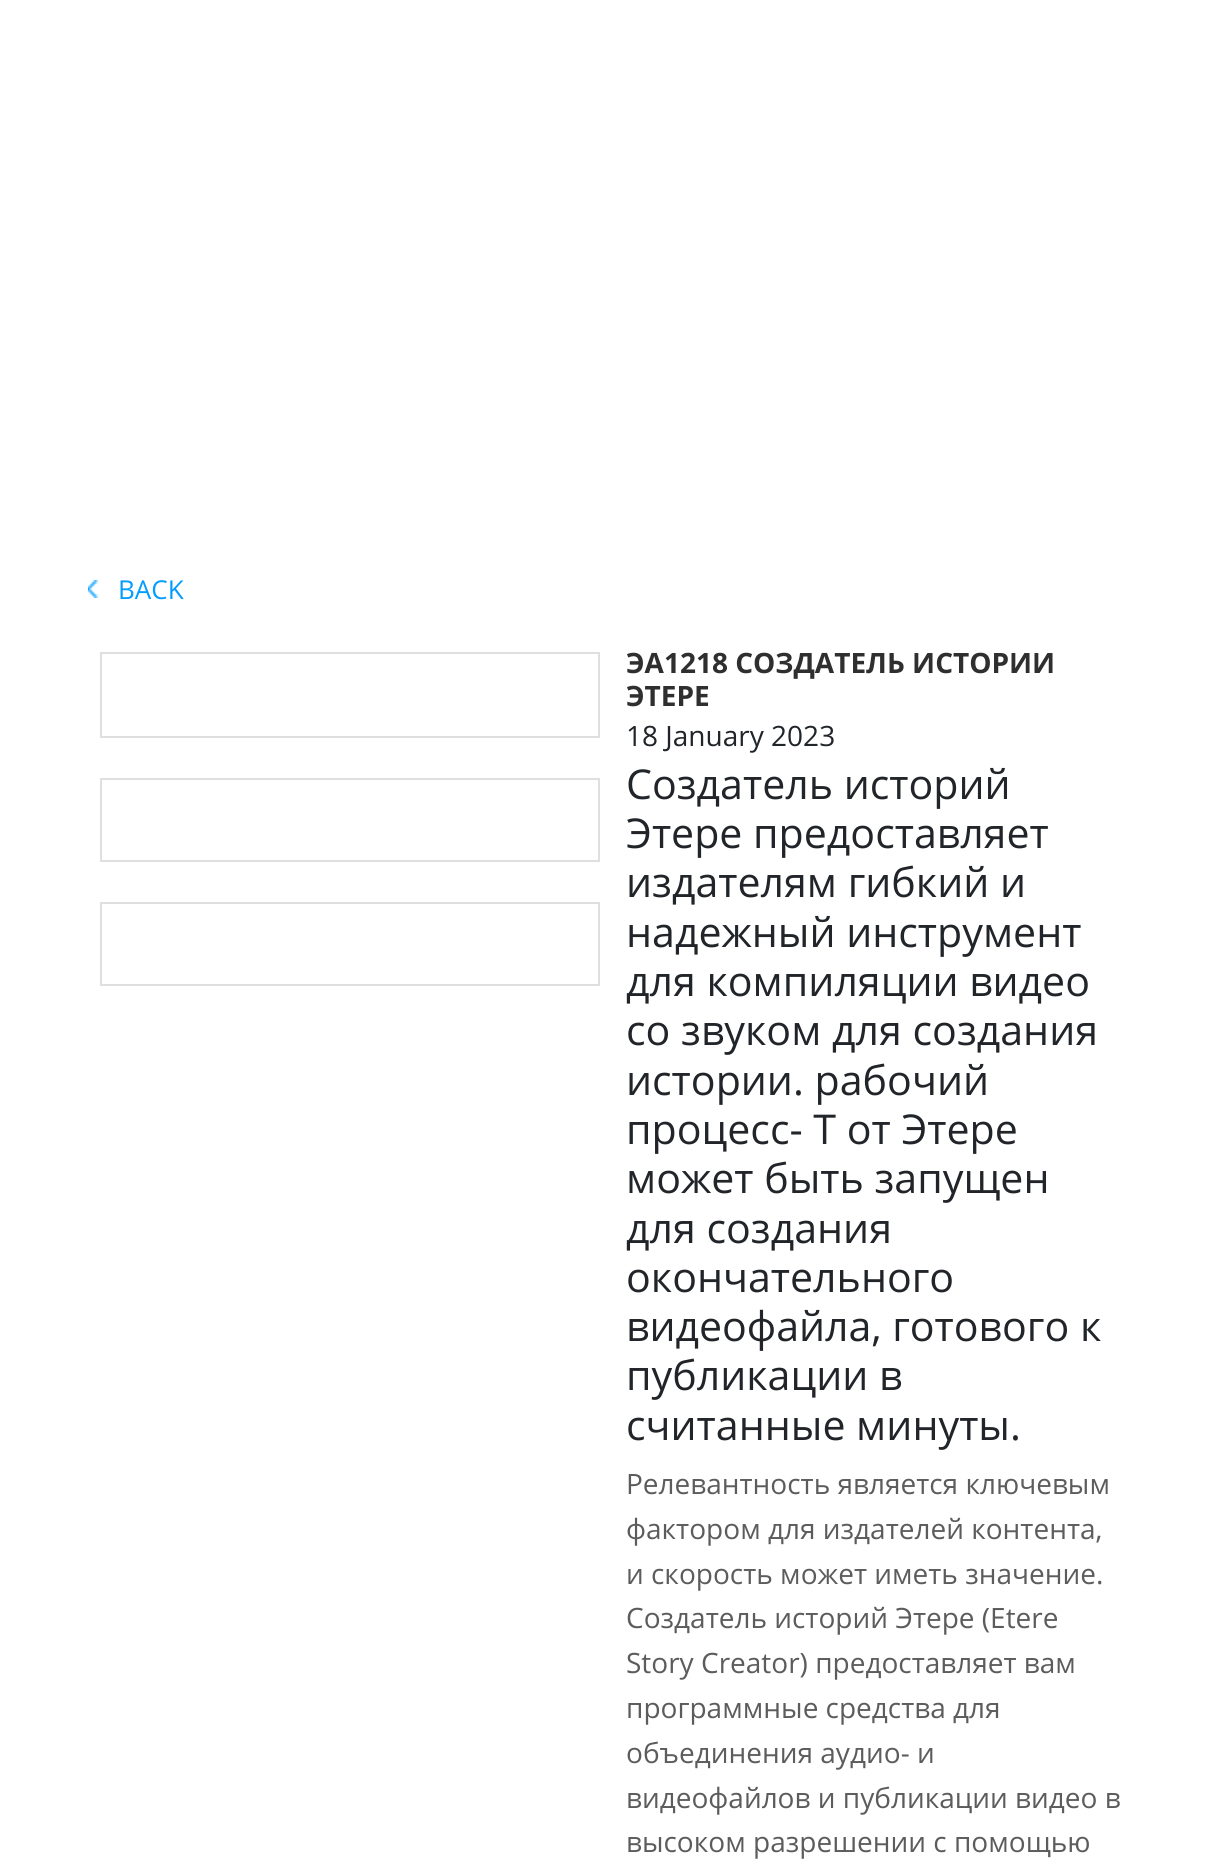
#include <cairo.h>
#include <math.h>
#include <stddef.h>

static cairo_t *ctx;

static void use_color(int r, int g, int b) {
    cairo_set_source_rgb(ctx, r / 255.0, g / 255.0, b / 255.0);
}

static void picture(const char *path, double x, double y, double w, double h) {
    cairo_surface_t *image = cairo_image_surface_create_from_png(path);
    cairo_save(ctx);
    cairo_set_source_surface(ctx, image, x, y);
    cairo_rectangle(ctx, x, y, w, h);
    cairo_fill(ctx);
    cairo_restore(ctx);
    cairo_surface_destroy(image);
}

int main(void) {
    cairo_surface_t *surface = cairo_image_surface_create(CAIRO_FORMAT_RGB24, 1215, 1864);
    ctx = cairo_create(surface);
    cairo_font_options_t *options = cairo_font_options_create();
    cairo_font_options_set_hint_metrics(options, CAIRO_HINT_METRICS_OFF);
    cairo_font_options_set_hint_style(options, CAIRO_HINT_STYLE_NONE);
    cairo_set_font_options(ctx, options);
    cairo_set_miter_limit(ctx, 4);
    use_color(255, 255, 255);
    cairo_paint(ctx);
    picture("img1.png", 88, 580, 10, 18);
    cairo_select_font_face(ctx, "Open Sans", CAIRO_FONT_SLANT_NORMAL, CAIRO_FONT_WEIGHT_NORMAL);
    cairo_set_font_size(ctx, 26);
    use_color(4, 156, 255);
    cairo_move_to(ctx, 118, 599);
    cairo_show_text(ctx, "BACK");
    cairo_rectangle(ctx, 101, 653, 498, 84);
    use_color(223, 223, 223);
    cairo_stroke(ctx);
    cairo_rectangle(ctx, 101, 779, 498, 82);
    cairo_stroke(ctx);
    cairo_rectangle(ctx, 101, 903, 498, 82);
    cairo_stroke(ctx);
    cairo_select_font_face(ctx, "Open Sans", CAIRO_FONT_SLANT_NORMAL, CAIRO_FONT_WEIGHT_BOLD);
    cairo_set_font_size(ctx, 28);
    use_color(47, 47, 47);
    cairo_move_to(ctx, 626, 673);
    cairo_show_text(ctx, "ЭA1218 СОЗДАТЕЛЬ ИСТОРИИ");
    cairo_move_to(ctx, 626, 706);
    cairo_show_text(ctx, "ЭТЕРЕ");
    cairo_select_font_face(ctx, "Open Sans", CAIRO_FONT_SLANT_NORMAL, CAIRO_FONT_WEIGHT_NORMAL);
    use_color(33, 37, 41);
    cairo_move_to(ctx, 626, 746);
    cairo_show_text(ctx, "18 January 2023");
    cairo_set_font_size(ctx, 41.1);
    cairo_move_to(ctx, 626, 799);
    cairo_show_text(ctx, "Создатель историй");
    cairo_move_to(ctx, 626, 848);
    cairo_show_text(ctx, "Этере предоставляет");
    cairo_move_to(ctx, 626, 897);
    cairo_show_text(ctx, "издателям гибкий и");
    cairo_move_to(ctx, 626, 947);
    cairo_show_text(ctx, "надежный инструмент");
    cairo_move_to(ctx, 626, 996);
    cairo_show_text(ctx, "для компиляции видео");
    cairo_move_to(ctx, 626, 1045);
    cairo_show_text(ctx, "со звуком для создания");
    cairo_move_to(ctx, 626, 1095);
    cairo_show_text(ctx, "истории. рабочий");
    cairo_move_to(ctx, 626, 1144);
    cairo_show_text(ctx, "процесс- T от Этере");
    cairo_move_to(ctx, 626, 1193);
    cairo_show_text(ctx, "может быть запущен");
    cairo_move_to(ctx, 626, 1243);
    cairo_show_text(ctx, "для создания");
    cairo_move_to(ctx, 626, 1292);
    cairo_show_text(ctx, "окончательного");
    cairo_move_to(ctx, 626, 1341);
    cairo_show_text(ctx, "видеофайла, готового к");
    cairo_move_to(ctx, 626, 1390);
    cairo_show_text(ctx, "публикации в");
    cairo_move_to(ctx, 626, 1440);
    cairo_show_text(ctx, "считанные минуты.");
    cairo_set_font_size(ctx, 28);
    use_color(92, 92, 92);
    cairo_move_to(ctx, 626, 1494);
    cairo_show_text(ctx, "Релевантность является ключевым");
    cairo_move_to(ctx, 626, 1539);
    cairo_show_text(ctx, "фактором для издателей контента,");
    cairo_move_to(ctx, 626, 1584);
    cairo_show_text(ctx, "и скорость может иметь значение.");
    cairo_move_to(ctx, 626, 1628);
    cairo_show_text(ctx, "Создатель историй Этере (Etere");
    cairo_move_to(ctx, 626, 1673);
    cairo_show_text(ctx, "Story Creator) предоставляет вам");
    cairo_move_to(ctx, 626, 1718);
    cairo_show_text(ctx, "программные средства для");
    cairo_move_to(ctx, 626, 1763);
    cairo_show_text(ctx, "объединения аудио- и");
    cairo_move_to(ctx, 626, 1808);
    cairo_show_text(ctx, "видеофайлов и публикации видео в");
    cairo_move_to(ctx, 626, 1852);
    cairo_show_text(ctx, "высоком разрешении с помощью");
    cairo_surface_write_to_png(surface, "result.png");
    cairo_font_options_destroy(options);
    cairo_destroy(ctx);
    cairo_surface_destroy(surface);
    return 0;
}
